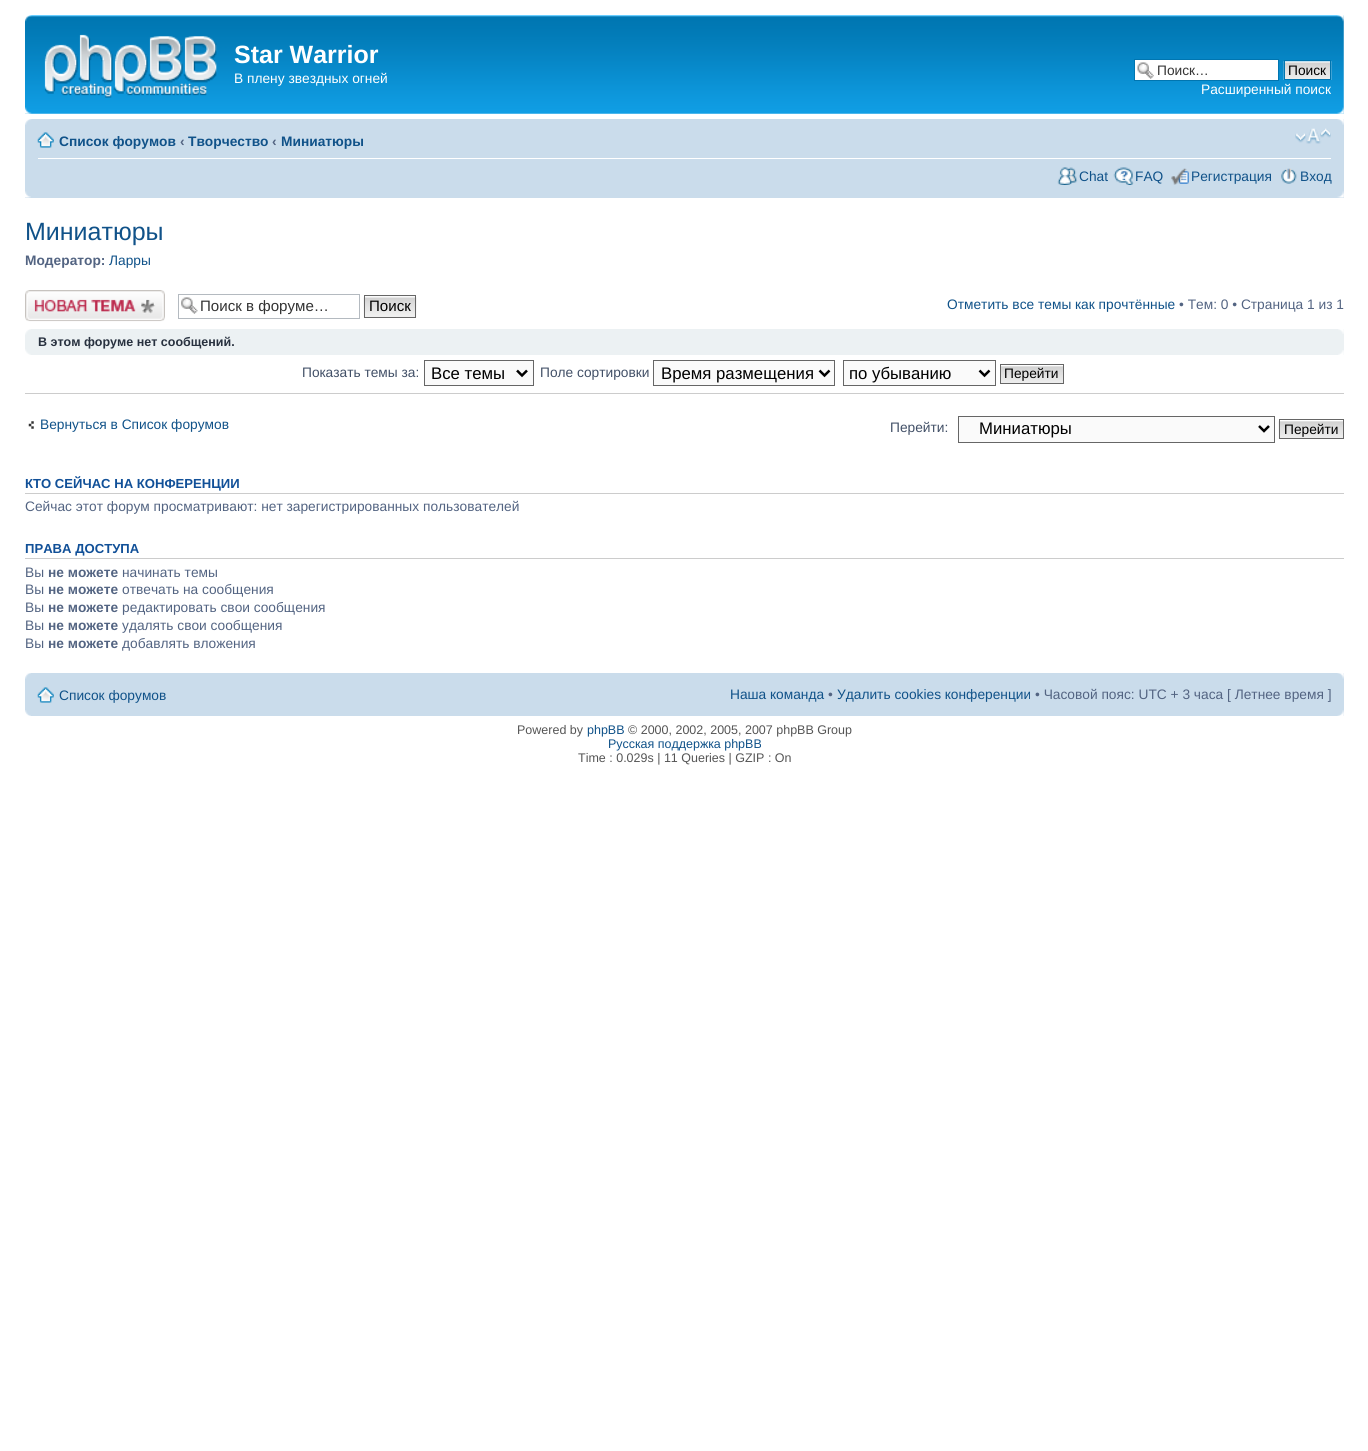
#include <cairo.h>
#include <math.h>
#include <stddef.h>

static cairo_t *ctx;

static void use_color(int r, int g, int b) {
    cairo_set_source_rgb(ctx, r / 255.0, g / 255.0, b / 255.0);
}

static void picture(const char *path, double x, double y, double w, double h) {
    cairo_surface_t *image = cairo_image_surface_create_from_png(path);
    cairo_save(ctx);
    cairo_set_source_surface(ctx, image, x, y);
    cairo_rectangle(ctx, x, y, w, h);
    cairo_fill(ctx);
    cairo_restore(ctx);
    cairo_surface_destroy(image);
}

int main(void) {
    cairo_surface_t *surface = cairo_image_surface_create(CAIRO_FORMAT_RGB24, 1368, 1451);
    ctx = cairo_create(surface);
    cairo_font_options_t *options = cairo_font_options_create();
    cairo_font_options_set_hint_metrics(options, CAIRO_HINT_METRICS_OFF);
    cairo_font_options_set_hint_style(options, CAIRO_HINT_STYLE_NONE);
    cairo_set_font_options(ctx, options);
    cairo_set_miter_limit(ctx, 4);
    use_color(255, 255, 255);
    cairo_paint(ctx);
    picture("img1.png", 25, 15, 1319, 99);
    picture("img2.png", 25, 15, 7, 7);
    picture("img3.png", 1337, 15, 7, 7);
    picture("img4.png", 44, 34, 173, 64);
    cairo_select_font_face(ctx, "Liberation Sans", CAIRO_FONT_SLANT_NORMAL, CAIRO_FONT_WEIGHT_BOLD);
    cairo_set_font_size(ctx, 25);
    use_color(255, 255, 255);
    cairo_move_to(ctx, 234, 63);
    cairo_show_text(ctx, "Star Warrior");
    cairo_select_font_face(ctx, "Liberation Sans", CAIRO_FONT_SLANT_NORMAL, CAIRO_FONT_WEIGHT_NORMAL);
    cairo_set_font_size(ctx, 13.75);
    cairo_move_to(ctx, 234, 83);
    cairo_show_text(ctx, "В плену звездных огней");
    cairo_rectangle(ctx, 1135, 60, 143, 20);
    cairo_fill(ctx);
    picture("img5.png", 1137, 62, 17, 17);
    cairo_rectangle(ctx, 1134.5, 59.5, 144, 21);
    use_color(0, 117, 176);
    cairo_set_line_width(ctx, 1);
    cairo_stroke(ctx);
    use_color(51, 51, 51);
    cairo_move_to(ctx, 1157, 75);
    cairo_show_text(ctx, "Поиск…");
    picture("img6.png", 1283, 61, 49, 19);
    cairo_rectangle(ctx, 1284.5, 60.5, 46, 19);
    use_color(0, 117, 176);
    cairo_stroke(ctx);
    use_color(0, 0, 0);
    cairo_move_to(ctx, 1288, 75);
    cairo_show_text(ctx, "Поиск");
    use_color(255, 255, 255);
    cairo_move_to(ctx, 1201, 94);
    cairo_show_text(ctx, "Расширенный поиск");
    picture("img7.png", 25, 107, 7, 7);
    picture("img8.png", 1337, 107, 7, 7);
    use_color(202, 220, 235);
    cairo_rectangle(ctx, 25, 119, 1319, 79);
    cairo_fill(ctx);
    picture("img9.png", 25, 119, 7, 6);
    picture("img10.png", 1337, 119, 7, 6);
    use_color(255, 255, 255);
    cairo_rectangle(ctx, 38, 158, 1293, 1);
    cairo_fill(ctx);
    picture("img11.png", 37, 132, 17, 16);
    cairo_select_font_face(ctx, "Liberation Sans", CAIRO_FONT_SLANT_NORMAL, CAIRO_FONT_WEIGHT_BOLD);
    use_color(16, 82, 137);
    cairo_move_to(ctx, 59, 146);
    cairo_show_text(ctx, "Список форумов");
    use_color(83, 100, 130);
    cairo_move_to(ctx, 180, 146);
    cairo_show_text(ctx, "‹");
    use_color(16, 82, 137);
    cairo_move_to(ctx, 188, 146);
    cairo_show_text(ctx, "Творчество");
    use_color(83, 100, 130);
    cairo_move_to(ctx, 272, 146);
    cairo_show_text(ctx, "‹");
    use_color(16, 82, 137);
    cairo_move_to(ctx, 281, 146);
    cairo_show_text(ctx, "Миниатюры");
    picture("img12.png", 1295, 128, 36, 16);
    picture("img13.png", 1057, 167, 21, 18);
    cairo_select_font_face(ctx, "Liberation Sans", CAIRO_FONT_SLANT_NORMAL, CAIRO_FONT_WEIGHT_NORMAL);
    cairo_move_to(ctx, 1079, 181);
    cairo_show_text(ctx, "Chat");
    picture("img14.png", 1113, 167, 21, 18);
    cairo_move_to(ctx, 1135, 181);
    cairo_show_text(ctx, "FAQ");
    picture("img15.png", 1171, 168, 18, 17);
    cairo_move_to(ctx, 1191, 181);
    cairo_show_text(ctx, "Регистрация");
    picture("img16.png", 1281, 168, 16, 16);
    cairo_move_to(ctx, 1300, 181);
    cairo_show_text(ctx, "Вход");
    picture("img17.png", 25, 191, 6, 7);
    picture("img18.png", 1337, 191, 7, 7);
    cairo_set_font_size(ctx, 25);
    cairo_move_to(ctx, 25, 240);
    cairo_show_text(ctx, "Миниатюры");
    cairo_select_font_face(ctx, "Liberation Sans", CAIRO_FONT_SLANT_NORMAL, CAIRO_FONT_WEIGHT_BOLD);
    cairo_set_font_size(ctx, 13.75);
    use_color(83, 100, 130);
    cairo_move_to(ctx, 25, 265);
    cairo_show_text(ctx, "Модератор:");
    cairo_select_font_face(ctx, "Liberation Sans", CAIRO_FONT_SLANT_NORMAL, CAIRO_FONT_WEIGHT_NORMAL);
    use_color(16, 82, 137);
    cairo_move_to(ctx, 109, 265);
    cairo_show_text(ctx, "Ларры");
    picture("img19.png", 25, 290, 140, 32);
    picture("img20.png", 181, 297, 17, 17);
    cairo_rectangle(ctx, 178.5, 294.5, 181, 24);
    use_color(180, 186, 192);
    cairo_stroke(ctx);
    cairo_set_font_size(ctx, 15.1);
    use_color(51, 51, 51);
    cairo_move_to(ctx, 200, 311);
    cairo_show_text(ctx, "Поиск в форуме…");
    use_color(250, 250, 250);
    cairo_rectangle(ctx, 365, 296, 50, 1);
    cairo_fill(ctx);
    picture("img21.png", 363, 297, 54, 21);
    cairo_rectangle(ctx, 364.5, 295.5, 51, 22);
    use_color(102, 102, 102);
    cairo_stroke(ctx);
    use_color(0, 0, 0);
    cairo_move_to(ctx, 369, 311);
    cairo_show_text(ctx, "Поиск");
    cairo_set_font_size(ctx, 13.75);
    use_color(16, 82, 137);
    cairo_move_to(ctx, 947, 309);
    cairo_show_text(ctx, "Отметить все темы как прочтённые");
    use_color(83, 100, 130);
    cairo_move_to(ctx, 1179, 309);
    cairo_show_text(ctx, "• Тем: 0 • Страница 1 из 1");
    use_color(236, 241, 243);
    cairo_rectangle(ctx, 25, 329, 1319, 26);
    cairo_fill(ctx);
    picture("img22.png", 25, 329, 6, 6);
    picture("img23.png", 1338, 329, 6, 5);
    cairo_select_font_face(ctx, "Liberation Sans", CAIRO_FONT_SLANT_NORMAL, CAIRO_FONT_WEIGHT_BOLD);
    cairo_set_font_size(ctx, 12.5);
    use_color(40, 49, 63);
    cairo_move_to(ctx, 38, 346);
    cairo_show_text(ctx, "В этом форуме нет сообщений.");
    picture("img24.png", 25, 349, 6, 6);
    picture("img25.png", 1338, 350, 6, 5);
    cairo_select_font_face(ctx, "Liberation Sans", CAIRO_FONT_SLANT_NORMAL, CAIRO_FONT_WEIGHT_NORMAL);
    cairo_set_font_size(ctx, 13.75);
    use_color(66, 80, 103);
    cairo_move_to(ctx, 302, 377);
    cairo_show_text(ctx, "Показать темы за:");
    use_color(250, 250, 250);
    cairo_rectangle(ctx, 424.5, 360.5, 109, 25);
    cairo_fill_preserve(ctx);
    use_color(102, 102, 102);
    cairo_stroke(ctx);
    cairo_new_path(ctx);
    cairo_move_to(ctx, 517, 370.5);
    cairo_line_to(ctx, 522, 375.5);
    cairo_line_to(ctx, 527, 370.5);
    use_color(0, 0, 0);
    cairo_set_line_width(ctx, 2.5);
    cairo_stroke(ctx);
    cairo_set_font_size(ctx, 16.75);
    cairo_move_to(ctx, 431, 379);
    cairo_show_text(ctx, "Все темы");
    cairo_set_font_size(ctx, 13.75);
    use_color(66, 80, 103);
    cairo_move_to(ctx, 540, 377);
    cairo_show_text(ctx, "Поле сортировки");
    use_color(250, 250, 250);
    cairo_rectangle(ctx, 653.5, 360.5, 181, 25);
    cairo_fill_preserve(ctx);
    use_color(102, 102, 102);
    cairo_set_line_width(ctx, 1);
    cairo_stroke(ctx);
    cairo_new_path(ctx);
    cairo_move_to(ctx, 819.5, 370.5);
    cairo_line_to(ctx, 824.5, 375.5);
    cairo_line_to(ctx, 829.5, 370.5);
    use_color(0, 0, 0);
    cairo_set_line_width(ctx, 2.5);
    cairo_stroke(ctx);
    cairo_set_font_size(ctx, 16.75);
    cairo_move_to(ctx, 661, 379);
    cairo_show_text(ctx, "Время размещения");
    use_color(250, 250, 250);
    cairo_rectangle(ctx, 843.5, 360.5, 152, 25);
    cairo_fill_preserve(ctx);
    use_color(102, 102, 102);
    cairo_set_line_width(ctx, 1);
    cairo_stroke(ctx);
    cairo_new_path(ctx);
    cairo_move_to(ctx, 979.5, 370.5);
    cairo_line_to(ctx, 984.5, 375.5);
    cairo_line_to(ctx, 989.5, 370.5);
    use_color(0, 0, 0);
    cairo_set_line_width(ctx, 2.5);
    cairo_stroke(ctx);
    cairo_move_to(ctx, 849, 379);
    cairo_show_text(ctx, "по убыванию");
    picture("img26.png", 1001, 365, 62, 18);
    cairo_rectangle(ctx, 1000.5, 364.5, 63, 19);
    use_color(102, 102, 102);
    cairo_set_line_width(ctx, 1);
    cairo_stroke(ctx);
    cairo_set_font_size(ctx, 13.75);
    use_color(0, 0, 0);
    cairo_move_to(ctx, 1004, 378);
    cairo_show_text(ctx, "Перейти");
    use_color(204, 204, 204);
    cairo_rectangle(ctx, 25, 393, 1319, 1);
    cairo_fill(ctx);
    picture("img27.png", 28, 421, 6, 8);
    use_color(16, 82, 137);
    cairo_move_to(ctx, 40, 429);
    cairo_show_text(ctx, "Вернуться в Список форумов");
    use_color(66, 80, 103);
    cairo_move_to(ctx, 890, 432);
    cairo_show_text(ctx, "Перейти:");
    use_color(250, 250, 250);
    cairo_rectangle(ctx, 958.5, 416.5, 316, 26);
    cairo_fill_preserve(ctx);
    use_color(102, 102, 102);
    cairo_stroke(ctx);
    cairo_new_path(ctx);
    cairo_move_to(ctx, 1259, 426);
    cairo_line_to(ctx, 1264, 431);
    cairo_line_to(ctx, 1269, 426);
    use_color(0, 0, 0);
    cairo_set_line_width(ctx, 2.5);
    cairo_stroke(ctx);
    cairo_set_font_size(ctx, 16.75);
    cairo_move_to(ctx, 979, 434);
    cairo_show_text(ctx, "Миниатюры");
    picture("img28.png", 1278, 420, 65, 19);
    cairo_rectangle(ctx, 1279.5, 419.5, 64, 19);
    use_color(102, 102, 102);
    cairo_set_line_width(ctx, 1);
    cairo_stroke(ctx);
    cairo_set_font_size(ctx, 13.75);
    use_color(0, 0, 0);
    cairo_move_to(ctx, 1284, 434);
    cairo_show_text(ctx, "Перейти");
    use_color(204, 204, 204);
    cairo_rectangle(ctx, 25, 493, 1319, 1);
    cairo_fill(ctx);
    cairo_select_font_face(ctx, "Liberation Sans", CAIRO_FONT_SLANT_NORMAL, CAIRO_FONT_WEIGHT_BOLD);
    cairo_set_font_size(ctx, 13.1);
    use_color(17, 80, 152);
    cairo_move_to(ctx, 25, 488);
    cairo_show_text(ctx, "КТО СЕЙЧАС НА КОНФЕРЕНЦИИ");
    cairo_select_font_face(ctx, "Liberation Sans", CAIRO_FONT_SLANT_NORMAL, CAIRO_FONT_WEIGHT_NORMAL);
    cairo_set_font_size(ctx, 13.75);
    use_color(83, 100, 130);
    cairo_move_to(ctx, 25, 511);
    cairo_show_text(ctx, "Сейчас этот форум просматривают: нет зарегистрированных пользователей");
    use_color(204, 204, 204);
    cairo_rectangle(ctx, 25, 558, 1319, 1);
    cairo_fill(ctx);
    cairo_select_font_face(ctx, "Liberation Sans", CAIRO_FONT_SLANT_NORMAL, CAIRO_FONT_WEIGHT_BOLD);
    cairo_set_font_size(ctx, 13.1);
    use_color(17, 80, 152);
    cairo_move_to(ctx, 25, 553);
    cairo_show_text(ctx, "ПРАВА ДОСТУПА");
    cairo_select_font_face(ctx, "Liberation Sans", CAIRO_FONT_SLANT_NORMAL, CAIRO_FONT_WEIGHT_NORMAL);
    cairo_set_font_size(ctx, 13.75);
    use_color(83, 100, 130);
    cairo_move_to(ctx, 25, 577);
    cairo_show_text(ctx, "Вы");
    cairo_select_font_face(ctx, "Liberation Sans", CAIRO_FONT_SLANT_NORMAL, CAIRO_FONT_WEIGHT_BOLD);
    cairo_move_to(ctx, 48, 577);
    cairo_show_text(ctx, "не можете");
    cairo_select_font_face(ctx, "Liberation Sans", CAIRO_FONT_SLANT_NORMAL, CAIRO_FONT_WEIGHT_NORMAL);
    cairo_move_to(ctx, 122, 577);
    cairo_show_text(ctx, "начинать темы");
    cairo_move_to(ctx, 25, 594);
    cairo_show_text(ctx, "Вы");
    cairo_select_font_face(ctx, "Liberation Sans", CAIRO_FONT_SLANT_NORMAL, CAIRO_FONT_WEIGHT_BOLD);
    cairo_move_to(ctx, 48, 594);
    cairo_show_text(ctx, "не можете");
    cairo_select_font_face(ctx, "Liberation Sans", CAIRO_FONT_SLANT_NORMAL, CAIRO_FONT_WEIGHT_NORMAL);
    cairo_move_to(ctx, 122, 594);
    cairo_show_text(ctx, "отвечать на сообщения");
    cairo_move_to(ctx, 25, 612);
    cairo_show_text(ctx, "Вы");
    cairo_select_font_face(ctx, "Liberation Sans", CAIRO_FONT_SLANT_NORMAL, CAIRO_FONT_WEIGHT_BOLD);
    cairo_move_to(ctx, 48, 612);
    cairo_show_text(ctx, "не можете");
    cairo_select_font_face(ctx, "Liberation Sans", CAIRO_FONT_SLANT_NORMAL, CAIRO_FONT_WEIGHT_NORMAL);
    cairo_move_to(ctx, 122, 612);
    cairo_show_text(ctx, "редактировать свои сообщения");
    cairo_move_to(ctx, 25, 630);
    cairo_show_text(ctx, "Вы");
    cairo_select_font_face(ctx, "Liberation Sans", CAIRO_FONT_SLANT_NORMAL, CAIRO_FONT_WEIGHT_BOLD);
    cairo_move_to(ctx, 48, 630);
    cairo_show_text(ctx, "не можете");
    cairo_select_font_face(ctx, "Liberation Sans", CAIRO_FONT_SLANT_NORMAL, CAIRO_FONT_WEIGHT_NORMAL);
    cairo_move_to(ctx, 122, 630);
    cairo_show_text(ctx, "удалять свои сообщения");
    cairo_move_to(ctx, 25, 648);
    cairo_show_text(ctx, "Вы");
    cairo_select_font_face(ctx, "Liberation Sans", CAIRO_FONT_SLANT_NORMAL, CAIRO_FONT_WEIGHT_BOLD);
    cairo_move_to(ctx, 48, 648);
    cairo_show_text(ctx, "не можете");
    cairo_select_font_face(ctx, "Liberation Sans", CAIRO_FONT_SLANT_NORMAL, CAIRO_FONT_WEIGHT_NORMAL);
    cairo_move_to(ctx, 122, 648);
    cairo_show_text(ctx, "добавлять вложения");
    use_color(202, 220, 235);
    cairo_rectangle(ctx, 25, 673, 1319, 43);
    cairo_fill(ctx);
    picture("img29.png", 25, 673, 6, 6);
    picture("img30.png", 1337, 673, 7, 6);
    picture("img11.png", 37, 687, 17, 16);
    use_color(16, 82, 137);
    cairo_move_to(ctx, 59, 700);
    cairo_show_text(ctx, "Список форумов");
    cairo_move_to(ctx, 730, 699);
    cairo_show_text(ctx, "Наша команда");
    use_color(83, 100, 130);
    cairo_move_to(ctx, 828, 699);
    cairo_show_text(ctx, "•");
    use_color(16, 82, 137);
    cairo_move_to(ctx, 837, 699);
    cairo_show_text(ctx, "Удалить cookies конференции");
    use_color(83, 100, 130);
    cairo_move_to(ctx, 1035, 699);
    cairo_show_text(ctx, "• Часовой пояс: UTC + 3 часа [ Летнее время ]");
    picture("img31.png", 25, 710, 6, 6);
    picture("img32.png", 1337, 710, 7, 6);
    cairo_set_font_size(ctx, 12.5);
    use_color(85, 85, 85);
    cairo_move_to(ctx, 517, 734);
    cairo_show_text(ctx, "Powered by");
    use_color(16, 82, 137);
    cairo_move_to(ctx, 587, 734);
    cairo_show_text(ctx, "phpBB");
    use_color(85, 85, 85);
    cairo_move_to(ctx, 628, 734);
    cairo_show_text(ctx, "© 2000, 2002, 2005, 2007 phpBB Group");
    use_color(16, 82, 137);
    cairo_move_to(ctx, 608, 748);
    cairo_show_text(ctx, "Русская поддержка phpBB");
    use_color(85, 85, 85);
    cairo_move_to(ctx, 578, 762);
    cairo_show_text(ctx, "Time : 0.029s | 11 Queries | GZIP : On");
    cairo_surface_write_to_png(surface, "result.png");
    cairo_font_options_destroy(options);
    cairo_destroy(ctx);
    cairo_surface_destroy(surface);
    return 0;
}
